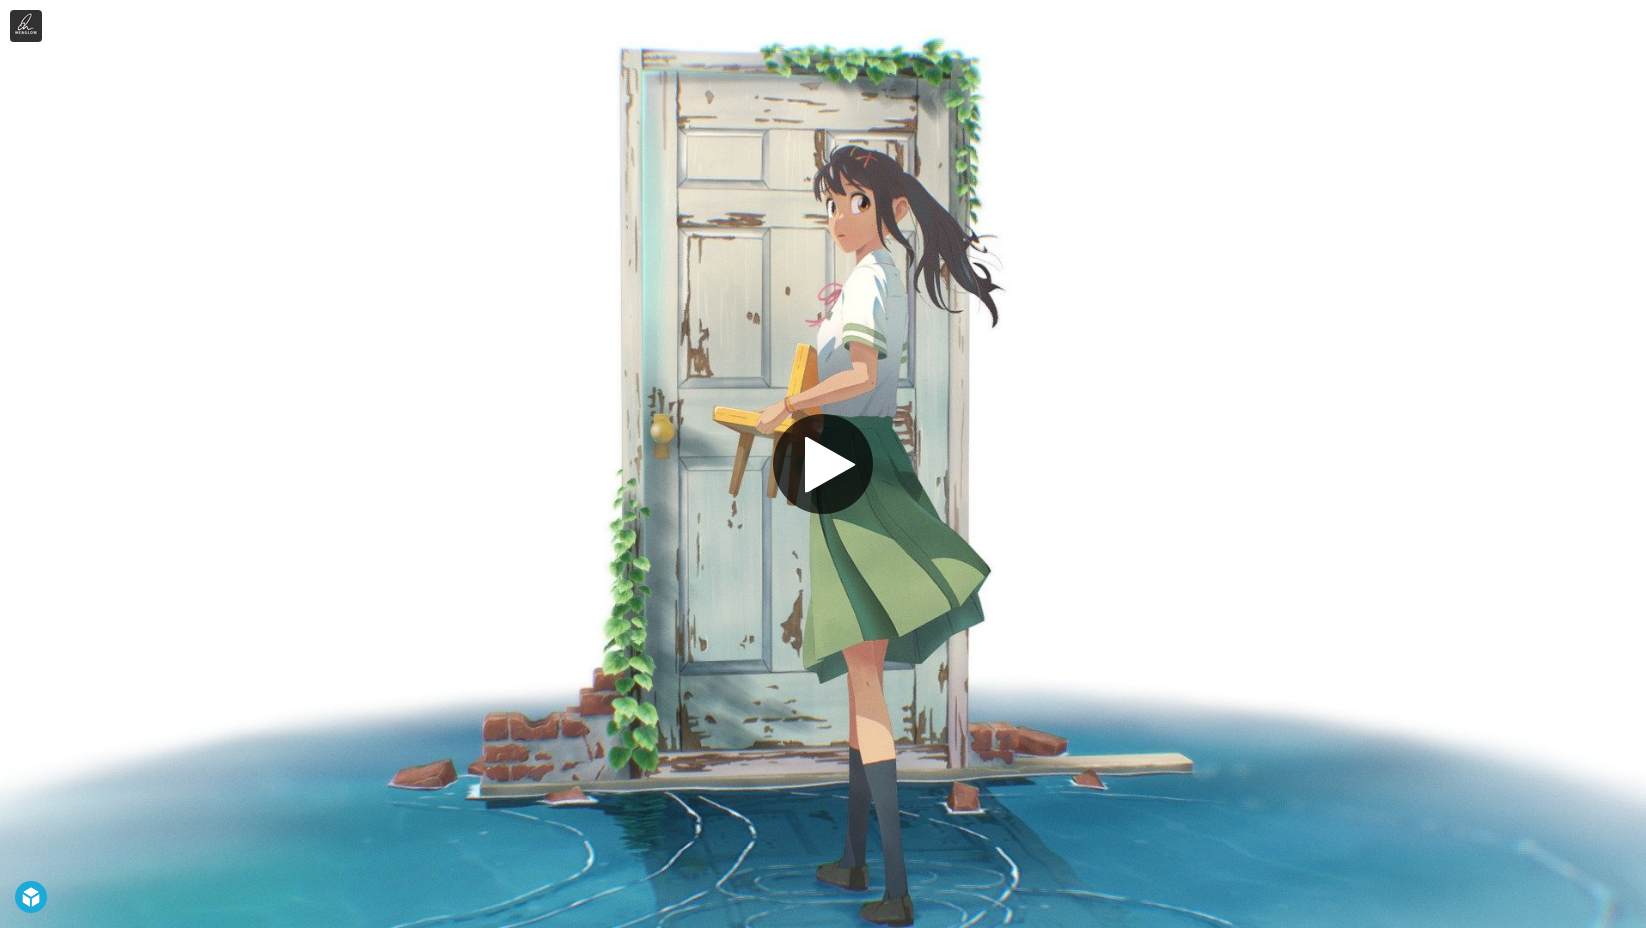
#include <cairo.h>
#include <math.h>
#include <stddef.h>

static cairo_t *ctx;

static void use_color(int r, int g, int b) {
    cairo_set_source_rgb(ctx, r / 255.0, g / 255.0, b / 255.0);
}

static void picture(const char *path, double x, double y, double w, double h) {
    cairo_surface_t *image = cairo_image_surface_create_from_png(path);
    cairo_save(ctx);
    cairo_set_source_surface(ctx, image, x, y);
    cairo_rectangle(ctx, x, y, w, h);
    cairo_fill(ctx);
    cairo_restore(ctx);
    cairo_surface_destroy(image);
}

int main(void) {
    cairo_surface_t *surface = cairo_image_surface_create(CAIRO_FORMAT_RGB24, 1646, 928);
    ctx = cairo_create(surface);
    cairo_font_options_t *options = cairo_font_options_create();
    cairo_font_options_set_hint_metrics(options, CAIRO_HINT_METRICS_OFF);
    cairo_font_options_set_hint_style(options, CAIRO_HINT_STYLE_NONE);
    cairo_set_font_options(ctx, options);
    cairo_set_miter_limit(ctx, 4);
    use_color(255, 255, 255);
    cairo_paint(ctx);
    picture("img2.png", 0, 28, 1646, 900);
    picture("img1.png", 10, 10, 32, 32);
    cairo_set_source_rgba(ctx, 0, 0, 0, 0.7);
    cairo_arc(ctx, 823, 464, 50, 0, 2 * M_PI);
    cairo_fill(ctx);
    use_color(255, 255, 255);
    cairo_new_path(ctx);
    cairo_move_to(ctx, 854, 466);
    cairo_line_to(ctx, 815, 488);
    cairo_curve_to(ctx, 814, 488, 807, 494, 805, 492);
    cairo_line_to(ctx, 805, 438);
    cairo_curve_to(ctx, 805, 437, 806, 437, 807, 437);
    cairo_line_to(ctx, 855, 464);
    cairo_curve_to(ctx, 856, 465, 855, 465, 854, 466);
    cairo_close_path(ctx);
    cairo_fill(ctx);
    picture("img3.png", 15, 881, 32, 32);
    cairo_surface_write_to_png(surface, "result.png");
    cairo_font_options_destroy(options);
    cairo_destroy(ctx);
    cairo_surface_destroy(surface);
    return 0;
}
